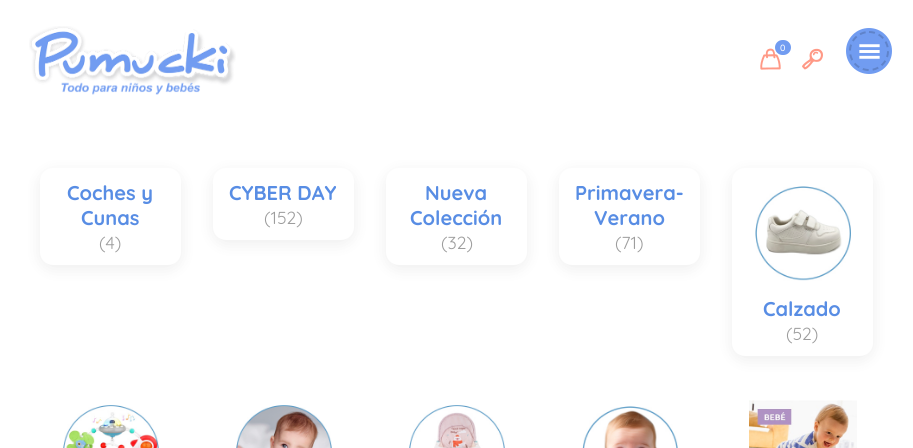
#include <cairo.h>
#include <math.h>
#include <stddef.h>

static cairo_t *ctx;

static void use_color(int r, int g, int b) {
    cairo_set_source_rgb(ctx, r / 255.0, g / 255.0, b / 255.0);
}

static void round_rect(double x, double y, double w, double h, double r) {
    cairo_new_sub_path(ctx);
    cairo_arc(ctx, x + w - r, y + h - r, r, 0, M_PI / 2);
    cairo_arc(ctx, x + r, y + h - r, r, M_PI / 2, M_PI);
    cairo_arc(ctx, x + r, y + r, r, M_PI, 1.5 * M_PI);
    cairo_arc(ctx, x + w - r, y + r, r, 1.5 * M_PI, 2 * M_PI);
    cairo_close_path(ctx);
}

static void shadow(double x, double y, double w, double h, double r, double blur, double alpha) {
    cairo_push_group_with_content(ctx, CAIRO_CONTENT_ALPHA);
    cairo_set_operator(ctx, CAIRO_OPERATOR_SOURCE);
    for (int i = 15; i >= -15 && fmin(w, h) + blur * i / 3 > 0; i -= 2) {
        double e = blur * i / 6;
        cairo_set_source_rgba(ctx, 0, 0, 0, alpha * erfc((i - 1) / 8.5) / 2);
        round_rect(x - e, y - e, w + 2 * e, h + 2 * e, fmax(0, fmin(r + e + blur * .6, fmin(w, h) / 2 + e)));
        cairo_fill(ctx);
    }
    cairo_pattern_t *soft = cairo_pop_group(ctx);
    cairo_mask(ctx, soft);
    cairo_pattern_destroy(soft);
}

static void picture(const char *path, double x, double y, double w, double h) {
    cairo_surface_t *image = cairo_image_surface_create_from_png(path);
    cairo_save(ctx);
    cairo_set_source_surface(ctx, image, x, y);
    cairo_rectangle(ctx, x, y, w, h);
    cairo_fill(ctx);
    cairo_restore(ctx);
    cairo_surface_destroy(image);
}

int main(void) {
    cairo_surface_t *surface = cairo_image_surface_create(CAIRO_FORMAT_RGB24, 913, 448);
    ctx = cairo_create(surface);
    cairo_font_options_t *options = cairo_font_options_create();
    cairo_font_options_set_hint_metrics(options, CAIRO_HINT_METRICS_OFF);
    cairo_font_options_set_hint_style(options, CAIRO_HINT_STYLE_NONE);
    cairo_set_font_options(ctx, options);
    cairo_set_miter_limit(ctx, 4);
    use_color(255, 255, 255);
    cairo_paint(ctx);
    picture("img1.png", 29, 26, 207, 69);
    picture("img2.png", 760, 48, 21, 22);
    use_color(113, 156, 241);
    round_rect(775, 40, 16, 15, 7.5);
    cairo_fill(ctx);
    cairo_select_font_face(ctx, "Quicksand Medium", CAIRO_FONT_SLANT_NORMAL, CAIRO_FONT_WEIGHT_NORMAL);
    cairo_set_font_size(ctx, 9);
    use_color(255, 255, 255);
    cairo_move_to(ctx, 780, 51);
    cairo_show_text(ctx, "0");
    picture("img3.png", 802, 48, 21, 22);
    use_color(113, 156, 241);
    cairo_arc(ctx, 869, 51, 23, 0, 2 * M_PI);
    cairo_fill(ctx);
    cairo_new_path(ctx);
    cairo_move_to(ctx, 869, 32);
    cairo_curve_to(ctx, 879.5, 32, 888, 40.5, 888, 51);
    cairo_curve_to(ctx, 888, 61.5, 879.5, 70, 869, 70);
    cairo_curve_to(ctx, 858.5, 70, 850, 61.5, 850, 51);
    cairo_curve_to(ctx, 850, 40.5, 858.5, 32, 869, 32);
    cairo_close_path(ctx);
    use_color(95, 131, 202);
    cairo_set_dash(ctx, (double[]){6, 4}, 2, 0);
    cairo_stroke(ctx);
    use_color(0, 0, 0);
    shadow(40, 172, 141, 97, 13, 8, 0.07);
    use_color(255, 255, 255);
    round_rect(40, 168, 141, 97, 13);
    cairo_fill(ctx);
    cairo_select_font_face(ctx, "Quicksand", CAIRO_FONT_SLANT_NORMAL, CAIRO_FONT_WEIGHT_BOLD);
    cairo_set_font_size(ctx, 20);
    use_color(88, 141, 228);
    cairo_move_to(ctx, 67, 200);
    cairo_show_text(ctx, "Coches y");
    cairo_move_to(ctx, 81, 225);
    cairo_show_text(ctx, "Cunas");
    cairo_select_font_face(ctx, "Quicksand", CAIRO_FONT_SLANT_NORMAL, CAIRO_FONT_WEIGHT_NORMAL);
    cairo_set_font_size(ctx, 17.5);
    use_color(157, 157, 157);
    cairo_move_to(ctx, 99, 249);
    cairo_show_text(ctx, "(4)");
    use_color(0, 0, 0);
    shadow(213, 172, 141, 72, 13, 8, 0.07);
    use_color(255, 255, 255);
    round_rect(213, 168, 141, 72, 13);
    cairo_fill(ctx);
    cairo_select_font_face(ctx, "Quicksand", CAIRO_FONT_SLANT_NORMAL, CAIRO_FONT_WEIGHT_BOLD);
    cairo_set_font_size(ctx, 20);
    use_color(88, 141, 228);
    cairo_move_to(ctx, 229, 200);
    cairo_show_text(ctx, "CYBER DAY");
    cairo_select_font_face(ctx, "Quicksand", CAIRO_FONT_SLANT_NORMAL, CAIRO_FONT_WEIGHT_NORMAL);
    cairo_set_font_size(ctx, 17.5);
    use_color(157, 157, 157);
    cairo_move_to(ctx, 264, 224);
    cairo_show_text(ctx, "(152)");
    use_color(0, 0, 0);
    shadow(386, 172, 141, 97, 13, 8, 0.07);
    use_color(255, 255, 255);
    round_rect(386, 168, 141, 97, 13);
    cairo_fill(ctx);
    cairo_select_font_face(ctx, "Quicksand", CAIRO_FONT_SLANT_NORMAL, CAIRO_FONT_WEIGHT_BOLD);
    cairo_set_font_size(ctx, 20);
    use_color(88, 141, 228);
    cairo_move_to(ctx, 425, 200);
    cairo_show_text(ctx, "Nueva");
    cairo_move_to(ctx, 410, 225);
    cairo_show_text(ctx, "Colección");
    cairo_select_font_face(ctx, "Quicksand", CAIRO_FONT_SLANT_NORMAL, CAIRO_FONT_WEIGHT_NORMAL);
    cairo_set_font_size(ctx, 17.5);
    use_color(157, 157, 157);
    cairo_move_to(ctx, 441, 249);
    cairo_show_text(ctx, "(32)");
    use_color(0, 0, 0);
    shadow(559, 172, 141, 97, 13, 8, 0.07);
    use_color(255, 255, 255);
    round_rect(559, 168, 141, 97, 13);
    cairo_fill(ctx);
    cairo_select_font_face(ctx, "Quicksand", CAIRO_FONT_SLANT_NORMAL, CAIRO_FONT_WEIGHT_BOLD);
    cairo_set_font_size(ctx, 20);
    use_color(88, 141, 228);
    cairo_move_to(ctx, 575, 200);
    cairo_show_text(ctx, "Primavera-");
    cairo_move_to(ctx, 594, 225);
    cairo_show_text(ctx, "Verano");
    cairo_select_font_face(ctx, "Quicksand", CAIRO_FONT_SLANT_NORMAL, CAIRO_FONT_WEIGHT_NORMAL);
    cairo_set_font_size(ctx, 17.5);
    use_color(157, 157, 157);
    cairo_move_to(ctx, 615, 249);
    cairo_show_text(ctx, "(71)");
    use_color(0, 0, 0);
    shadow(732, 172, 141, 188, 13, 8, 0.07);
    use_color(255, 255, 255);
    round_rect(732, 168, 141, 188, 13);
    cairo_fill(ctx);
    picture("img4.png", 755, 186, 96, 95);
    cairo_select_font_face(ctx, "Quicksand", CAIRO_FONT_SLANT_NORMAL, CAIRO_FONT_WEIGHT_BOLD);
    cairo_set_font_size(ctx, 20);
    use_color(88, 141, 228);
    cairo_move_to(ctx, 763, 316);
    cairo_show_text(ctx, "Calzado");
    cairo_select_font_face(ctx, "Quicksand", CAIRO_FONT_SLANT_NORMAL, CAIRO_FONT_WEIGHT_NORMAL);
    cairo_set_font_size(ctx, 17.5);
    use_color(157, 157, 157);
    cairo_move_to(ctx, 786, 340);
    cairo_show_text(ctx, "(52)");
    picture("img5.png", 63, 405, 96, 43);
    picture("img6.png", 236, 405, 96, 43);
    picture("img7.png", 409, 405, 96, 43);
    picture("img8.png", 582, 406, 96, 42);
    picture("img9.png", 749, 400, 108, 48);
    picture("img10.png", 859, 44, 21, 15);
    cairo_surface_write_to_png(surface, "result.png");
    cairo_font_options_destroy(options);
    cairo_destroy(ctx);
    cairo_surface_destroy(surface);
    return 0;
}
